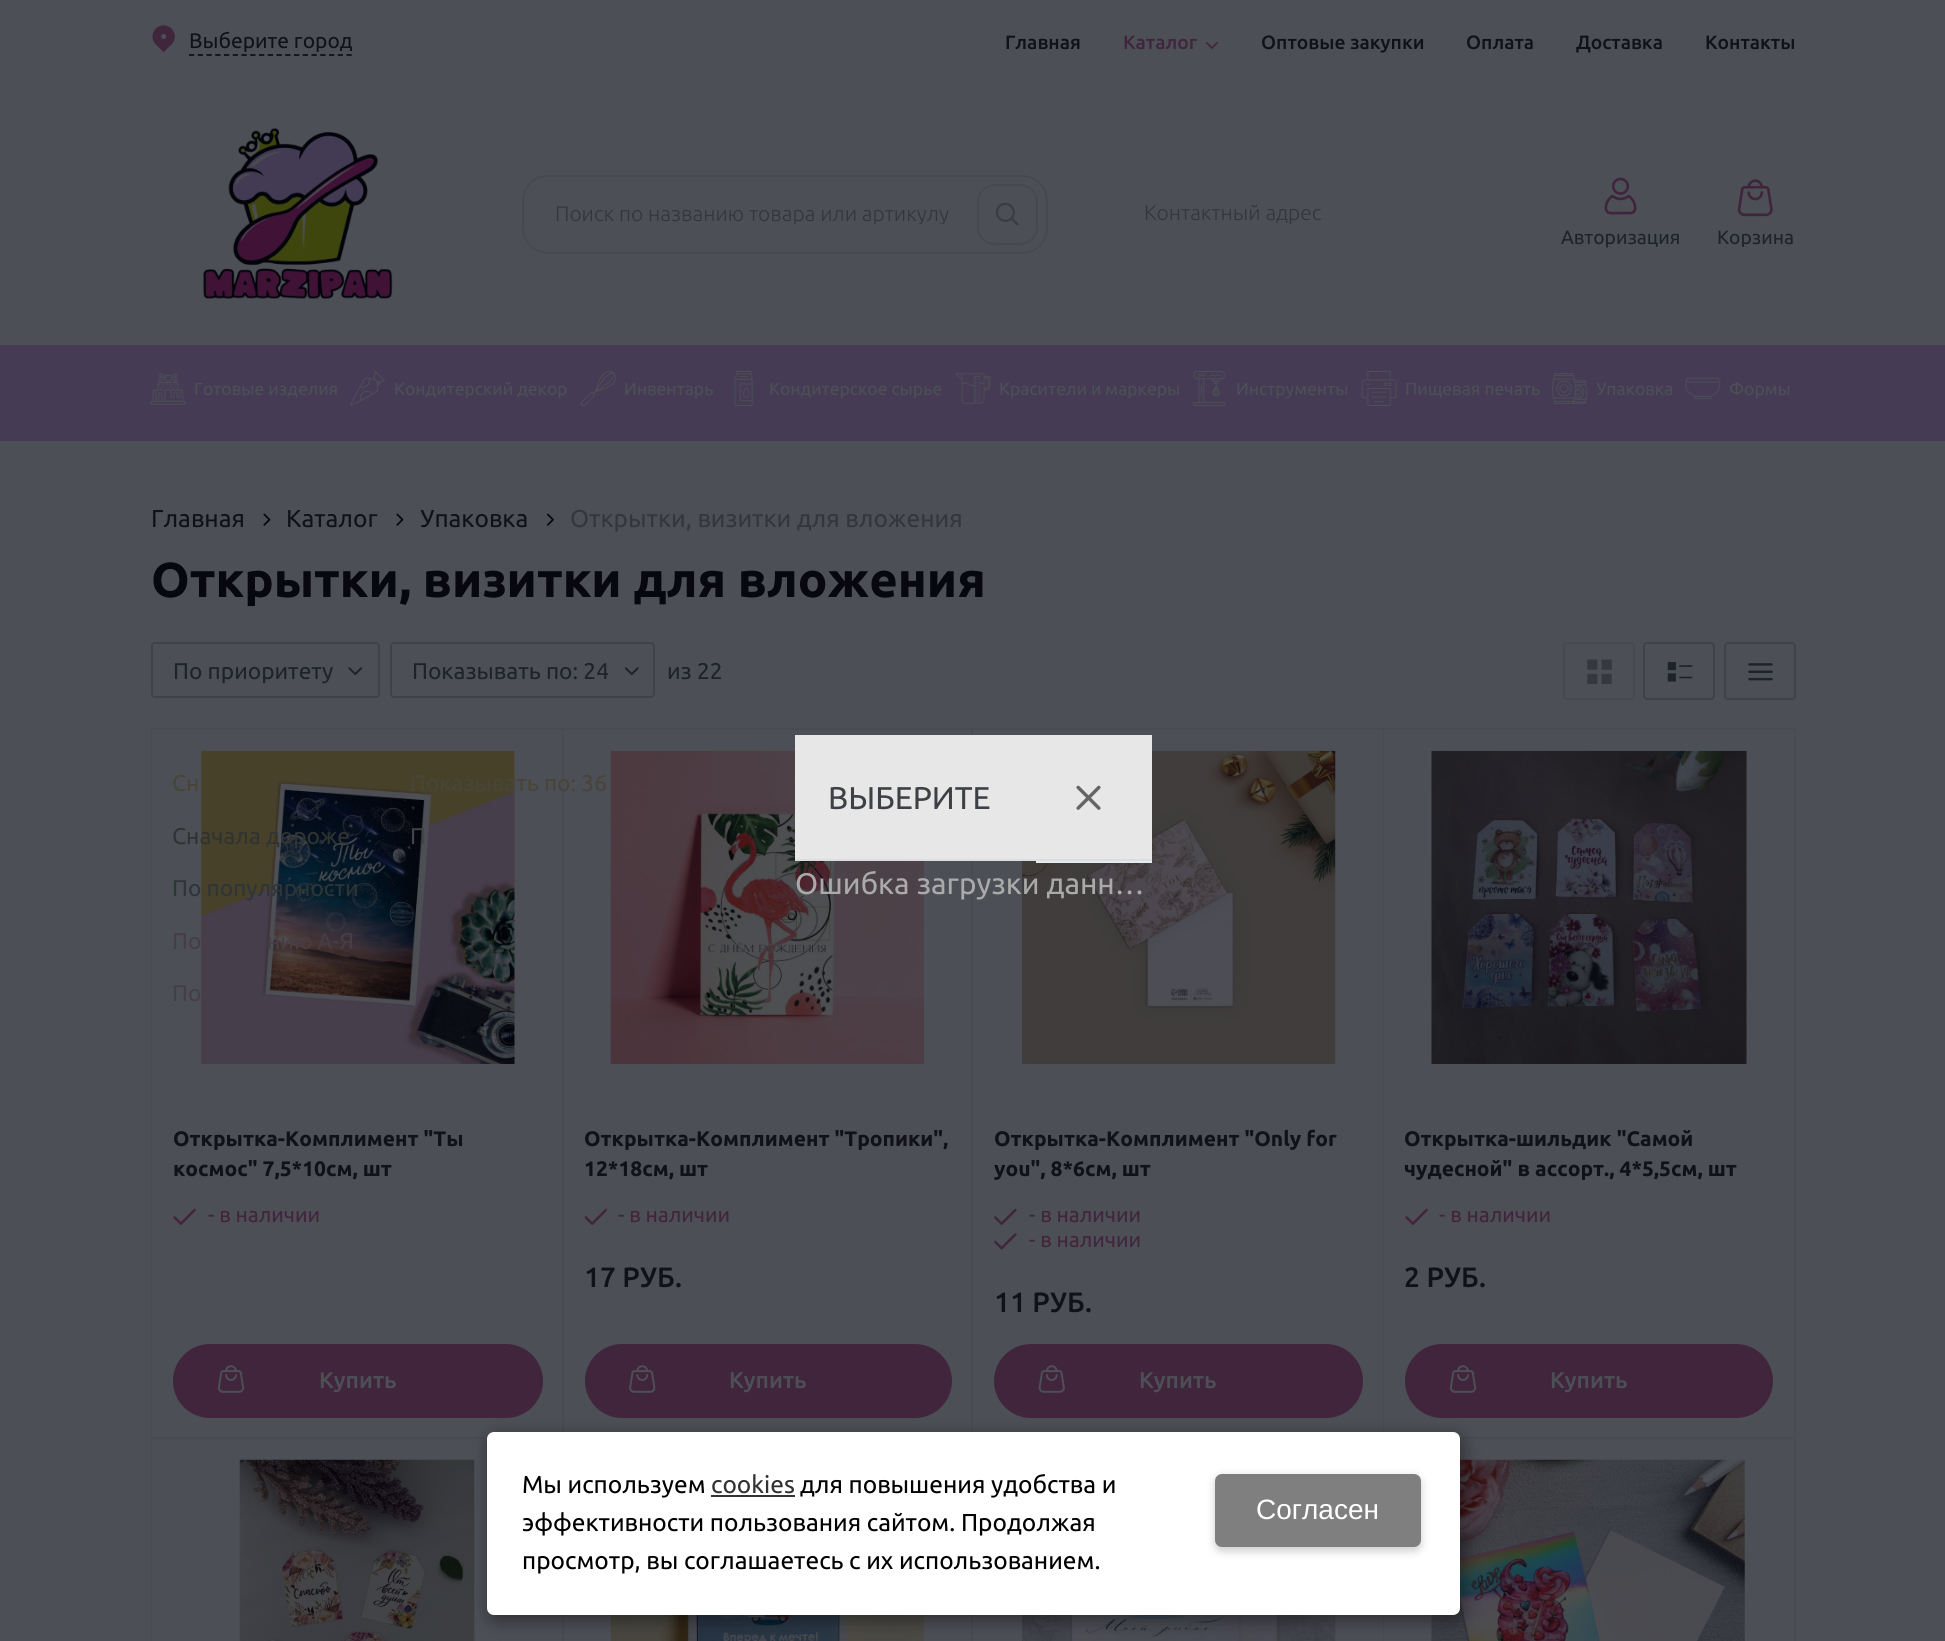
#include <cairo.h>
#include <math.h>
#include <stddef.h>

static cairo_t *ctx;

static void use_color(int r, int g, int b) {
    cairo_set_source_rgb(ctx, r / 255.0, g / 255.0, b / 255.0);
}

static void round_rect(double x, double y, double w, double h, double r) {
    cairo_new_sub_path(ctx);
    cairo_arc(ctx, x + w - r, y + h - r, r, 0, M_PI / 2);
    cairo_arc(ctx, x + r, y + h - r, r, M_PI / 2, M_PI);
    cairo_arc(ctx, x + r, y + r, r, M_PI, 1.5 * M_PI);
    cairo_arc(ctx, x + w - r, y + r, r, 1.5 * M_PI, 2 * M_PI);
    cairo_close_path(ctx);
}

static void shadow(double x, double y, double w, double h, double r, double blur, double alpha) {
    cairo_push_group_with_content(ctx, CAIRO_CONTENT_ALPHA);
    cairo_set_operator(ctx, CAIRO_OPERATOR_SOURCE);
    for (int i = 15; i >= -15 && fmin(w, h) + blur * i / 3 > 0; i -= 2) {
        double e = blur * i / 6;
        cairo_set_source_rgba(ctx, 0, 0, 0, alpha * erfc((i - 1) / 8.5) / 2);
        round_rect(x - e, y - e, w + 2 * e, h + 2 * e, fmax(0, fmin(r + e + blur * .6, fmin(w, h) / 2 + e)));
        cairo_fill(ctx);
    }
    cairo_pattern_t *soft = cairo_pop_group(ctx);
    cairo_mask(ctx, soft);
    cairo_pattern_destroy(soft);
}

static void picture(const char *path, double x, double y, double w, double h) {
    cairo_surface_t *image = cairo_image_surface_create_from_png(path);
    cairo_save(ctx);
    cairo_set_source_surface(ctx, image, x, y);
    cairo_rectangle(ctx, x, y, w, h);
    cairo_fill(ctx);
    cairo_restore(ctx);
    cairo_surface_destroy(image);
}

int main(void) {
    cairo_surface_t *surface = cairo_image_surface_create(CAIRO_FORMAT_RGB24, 1945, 1641);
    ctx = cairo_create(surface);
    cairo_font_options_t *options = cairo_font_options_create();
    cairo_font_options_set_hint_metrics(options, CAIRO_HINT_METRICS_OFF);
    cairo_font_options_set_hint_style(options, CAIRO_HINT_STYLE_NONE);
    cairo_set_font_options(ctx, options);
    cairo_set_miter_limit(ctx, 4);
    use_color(77, 79, 86);
    cairo_paint(ctx);
    picture("img1.png", 152, 25, 23, 28);
    cairo_new_path(ctx);
    cairo_move_to(ctx, 189, 55);
    cairo_line_to(ctx, 352, 55);
    use_color(16, 18, 24);
    cairo_set_line_width(ctx, 1.8);
    cairo_set_dash(ctx, (double[]){5.25, 3.5}, 2, 0);
    cairo_stroke(ctx);
    cairo_select_font_face(ctx, "Ubuntu", CAIRO_FONT_SLANT_NORMAL, CAIRO_FONT_WEIGHT_NORMAL);
    cairo_set_font_size(ctx, 21);
    cairo_move_to(ctx, 189, 48);
    cairo_show_text(ctx, "Выберите город");
    cairo_select_font_face(ctx, "Ubuntu Medium", CAIRO_FONT_SLANT_NORMAL, CAIRO_FONT_WEIGHT_NORMAL);
    cairo_set_font_size(ctx, 19.25);
    cairo_move_to(ctx, 1005, 49);
    cairo_show_text(ctx, "Главная");
    use_color(64, 37, 60);
    cairo_move_to(ctx, 1123, 49);
    cairo_show_text(ctx, "Каталог");
    picture("img2.png", 1205, 42, 13, 7);
    use_color(16, 18, 24);
    cairo_move_to(ctx, 1261, 49);
    cairo_show_text(ctx, "Оптовые закупки");
    cairo_move_to(ctx, 1466, 49);
    cairo_show_text(ctx, "Оплата");
    cairo_move_to(ctx, 1576, 49);
    cairo_show_text(ctx, "Доставка");
    cairo_move_to(ctx, 1705, 49);
    cairo_show_text(ctx, "Контакты");
    picture("img3.png", 203, 127, 190, 173);
    round_rect(523, 176, 524, 77, 25);
    use_color(71, 73, 79);
    cairo_set_line_width(ctx, 2);
    cairo_set_dash(ctx, NULL, 0, 0);
    cairo_stroke(ctx);
    cairo_save(ctx);
    cairo_rectangle(ctx, 555, 201, 404, 23);
    cairo_clip(ctx);
    cairo_select_font_face(ctx, "Ubuntu Light", CAIRO_FONT_SLANT_NORMAL, CAIRO_FONT_WEIGHT_NORMAL);
    cairo_set_font_size(ctx, 21);
    use_color(52, 54, 60);
    cairo_move_to(ctx, 555, 221);
    cairo_show_text(ctx, "Поиск по названию товара или артикулу");
    cairo_restore(ctx);
    round_rect(978, 185, 59, 59, 17);
    cairo_stroke(ctx);
    picture("img4.png", 995, 202, 24, 24);
    cairo_select_font_face(ctx, "Ubuntu Light", CAIRO_FONT_SLANT_NORMAL, CAIRO_FONT_WEIGHT_NORMAL);
    cairo_set_font_size(ctx, 21);
    use_color(52, 54, 60);
    cairo_move_to(ctx, 1144, 220);
    cairo_show_text(ctx, "Контактный адрес");
    picture("img5.png", 1604, 177, 33, 38);
    cairo_select_font_face(ctx, "Ubuntu", CAIRO_FONT_SLANT_NORMAL, CAIRO_FONT_WEIGHT_NORMAL);
    cairo_set_font_size(ctx, 19.25);
    use_color(30, 34, 41);
    cairo_move_to(ctx, 1561, 244);
    cairo_show_text(ctx, "Авторизация");
    picture("img6.png", 1737, 179, 36, 38);
    cairo_save(ctx);
    round_rect(1717, 177, 77, 70, 2);
    cairo_clip(ctx);
    cairo_move_to(ctx, 1717, 244);
    cairo_show_text(ctx, "Корзина");
    cairo_restore(ctx);
    use_color(69, 59, 84);
    cairo_rectangle(ctx, 0, 345, 1945, 96);
    cairo_fill(ctx);
    picture("img7.png", 150, 372, 36, 33);
    cairo_set_font_size(ctx, 17.5);
    use_color(77, 79, 86);
    cairo_move_to(ctx, 194, 395);
    cairo_show_text(ctx, "Готовые изделия");
    picture("img8.png", 350, 371, 35, 35);
    cairo_move_to(ctx, 394, 395);
    cairo_show_text(ctx, "Кондитерский декор");
    picture("img9.png", 581, 371, 35, 35);
    cairo_move_to(ctx, 624, 395);
    cairo_show_text(ctx, "Инвентарь");
    picture("img10.png", 734, 371, 20, 35);
    cairo_move_to(ctx, 769, 395);
    cairo_show_text(ctx, "Кондитерское сырье");
    picture("img11.png", 955, 373, 36, 31);
    cairo_move_to(ctx, 999, 395);
    cairo_show_text(ctx, "Красители и маркеры");
    picture("img12.png", 1192, 371, 34, 35);
    cairo_move_to(ctx, 1236, 395);
    cairo_show_text(ctx, "Инструменты");
    picture("img13.png", 1361, 371, 36, 35);
    cairo_move_to(ctx, 1405, 395);
    cairo_show_text(ctx, "Пищевая печать");
    picture("img14.png", 1552, 373, 36, 31);
    cairo_move_to(ctx, 1596, 395);
    cairo_show_text(ctx, "Упаковка");
    picture("img15.png", 1685, 377, 36, 23);
    cairo_move_to(ctx, 1729, 395);
    cairo_show_text(ctx, "Формы");
    cairo_set_font_size(ctx, 24.5);
    use_color(16, 18, 24);
    cairo_move_to(ctx, 151, 527);
    cairo_show_text(ctx, "Главная");
    picture("img16.png", 263, 513, 8, 13);
    cairo_move_to(ctx, 286, 527);
    cairo_show_text(ctx, "Каталог");
    picture("img16.png", 396, 513, 8, 13);
    cairo_move_to(ctx, 420, 527);
    cairo_show_text(ctx, "Упаковка");
    picture("img17.png", 546, 513, 8, 13);
    use_color(52, 54, 60);
    cairo_move_to(ctx, 570, 527);
    cairo_show_text(ctx, "Открытки, визитки для вложения");
    cairo_select_font_face(ctx, "Ubuntu", CAIRO_FONT_SLANT_NORMAL, CAIRO_FONT_WEIGHT_BOLD);
    cairo_set_font_size(ctx, 49);
    use_color(6, 8, 14);
    cairo_move_to(ctx, 151, 597);
    cairo_show_text(ctx, "Открытки, визитки для вложения");
    round_rect(152, 643, 227, 54, 3);
    use_color(64, 66, 73);
    cairo_stroke(ctx);
    cairo_select_font_face(ctx, "Ubuntu", CAIRO_FONT_SLANT_NORMAL, CAIRO_FONT_WEIGHT_NORMAL);
    cairo_set_font_size(ctx, 22.75);
    use_color(30, 34, 41);
    cairo_move_to(ctx, 173, 679);
    cairo_show_text(ctx, "По приоритету");
    picture("img18.png", 348, 667, 15, 9);
    cairo_rectangle(ctx, 152, 729, 412, 710);
    use_color(73, 75, 82);
    cairo_stroke(ctx);
    use_color(72, 68, 55);
    cairo_move_to(ctx, 172, 791);
    cairo_show_text(ctx, "Сн");
    picture("img23.png", 201, 750, 314, 314);
    use_color(48, 51, 48);
    cairo_move_to(ctx, 172, 844);
    cairo_show_text(ctx, "Сначала дороже");
    use_color(45, 53, 54);
    cairo_move_to(ctx, 172, 896);
    cairo_show_text(ctx, "По популярности");
    use_color(70, 61, 69);
    cairo_move_to(ctx, 172, 949);
    cairo_show_text(ctx, "По");
    cairo_move_to(ctx, 267, 949);
    cairo_show_text(ctx, "нию А-Я");
    cairo_move_to(ctx, 172, 1001);
    cairo_show_text(ctx, "По");
    cairo_move_to(ctx, 332, 1001);
    cairo_show_text(ctx, "-");
    round_rect(391, 643, 263, 54, 3);
    use_color(64, 66, 73);
    cairo_stroke(ctx);
    use_color(30, 34, 41);
    cairo_move_to(ctx, 412, 679);
    cairo_show_text(ctx, "Показывать по: 24");
    picture("img19.png", 624, 667, 15, 9);
    cairo_rectangle(ctx, 563, 729, 411, 710);
    use_color(73, 75, 82);
    cairo_stroke(ctx);
    use_color(77, 79, 86);
    cairo_rectangle(ctx, 564, 730, 1, 702);
    cairo_fill(ctx);
    use_color(72, 68, 55);
    cairo_move_to(ctx, 410, 791);
    cairo_show_text(ctx, "Показывать по: 36");
    use_color(69, 66, 76);
    cairo_move_to(ctx, 410, 844);
    cairo_show_text(ctx, "П");
    use_color(30, 34, 41);
    cairo_move_to(ctx, 667, 679);
    cairo_show_text(ctx, "из 22");
    round_rect(1564, 643, 70, 56, 3);
    use_color(71, 73, 79);
    cairo_stroke(ctx);
    picture("img20.png", 1587, 659, 25, 25);
    round_rect(1644, 643, 70, 56, 3);
    use_color(64, 66, 73);
    cairo_stroke(ctx);
    picture("img21.png", 1667, 661, 26, 21);
    round_rect(1725, 643, 70, 56, 3);
    cairo_stroke(ctx);
    picture("img22.png", 1748, 663, 25, 18);
    use_color(77, 79, 86);
    cairo_rectangle(ctx, 152, 730, 1, 707);
    cairo_fill(ctx);
    cairo_select_font_face(ctx, "Ubuntu", CAIRO_FONT_SLANT_NORMAL, CAIRO_FONT_WEIGHT_BOLD);
    cairo_set_font_size(ctx, 21);
    use_color(16, 18, 24);
    cairo_move_to(ctx, 173, 1146);
    cairo_show_text(ctx, "Открытка-Комплимент \"Ты");
    cairo_move_to(ctx, 173, 1176);
    cairo_show_text(ctx, "космос\" 7,5*10см, шт");
    picture("img24.png", 173, 1208, 23, 17);
    cairo_select_font_face(ctx, "Ubuntu", CAIRO_FONT_SLANT_NORMAL, CAIRO_FONT_WEIGHT_NORMAL);
    use_color(64, 37, 60);
    cairo_move_to(ctx, 208, 1222);
    cairo_show_text(ctx, "- в наличии");
    round_rect(173, 1344, 370, 74, 37);
    cairo_fill(ctx);
    picture("img25.png", 217, 1365, 28, 28);
    cairo_select_font_face(ctx, "Ubuntu Medium", CAIRO_FONT_SLANT_NORMAL, CAIRO_FONT_WEIGHT_NORMAL);
    cairo_set_font_size(ctx, 22.75);
    use_color(77, 79, 86);
    cairo_move_to(ctx, 319, 1388);
    cairo_show_text(ctx, "Купить");
    picture("img26.png", 610, 750, 314, 314);
    cairo_save(ctx);
    cairo_rectangle(ctx, 585, 1125, 367, 60);
    cairo_clip(ctx);
    cairo_select_font_face(ctx, "Ubuntu", CAIRO_FONT_SLANT_NORMAL, CAIRO_FONT_WEIGHT_BOLD);
    cairo_set_font_size(ctx, 21);
    use_color(16, 18, 24);
    cairo_move_to(ctx, 584, 1146);
    cairo_show_text(ctx, "Открытка-Комплимент \"Тропики\",");
    cairo_restore(ctx);
    cairo_select_font_face(ctx, "Ubuntu", CAIRO_FONT_SLANT_NORMAL, CAIRO_FONT_WEIGHT_BOLD);
    cairo_set_font_size(ctx, 21);
    use_color(16, 18, 24);
    cairo_move_to(ctx, 584, 1176);
    cairo_show_text(ctx, "12*18см, шт");
    picture("img27.png", 584, 1208, 24, 17);
    cairo_select_font_face(ctx, "Ubuntu", CAIRO_FONT_SLANT_NORMAL, CAIRO_FONT_WEIGHT_NORMAL);
    use_color(64, 37, 60);
    cairo_move_to(ctx, 618, 1222);
    cairo_show_text(ctx, "- в наличии");
    cairo_select_font_face(ctx, "Ubuntu Medium", CAIRO_FONT_SLANT_NORMAL, CAIRO_FONT_WEIGHT_NORMAL);
    cairo_set_font_size(ctx, 28);
    use_color(16, 18, 24);
    cairo_move_to(ctx, 584, 1287);
    cairo_show_text(ctx, "17 РУБ.");
    use_color(64, 37, 60);
    round_rect(585, 1344, 367, 74, 37);
    cairo_fill(ctx);
    picture("img28.png", 629, 1365, 27, 28);
    cairo_set_font_size(ctx, 22.75);
    use_color(77, 79, 86);
    cairo_move_to(ctx, 729, 1388);
    cairo_show_text(ctx, "Купить");
    cairo_rectangle(ctx, 972, 729, 413, 710);
    use_color(73, 75, 82);
    cairo_stroke(ctx);
    use_color(77, 79, 86);
    cairo_rectangle(ctx, 973, 730, 2, 702);
    cairo_fill(ctx);
    picture("img29.png", 1022, 750, 314, 314);
    cairo_select_font_face(ctx, "Ubuntu", CAIRO_FONT_SLANT_NORMAL, CAIRO_FONT_WEIGHT_BOLD);
    cairo_set_font_size(ctx, 21);
    use_color(16, 18, 24);
    cairo_move_to(ctx, 994, 1146);
    cairo_show_text(ctx, "Открытка-Комплимент \"Only for");
    cairo_move_to(ctx, 994, 1176);
    cairo_show_text(ctx, "you\", 8*6см, шт");
    picture("img30.png", 994, 1208, 23, 17);
    cairo_select_font_face(ctx, "Ubuntu", CAIRO_FONT_SLANT_NORMAL, CAIRO_FONT_WEIGHT_NORMAL);
    use_color(64, 37, 60);
    cairo_move_to(ctx, 1029, 1222);
    cairo_show_text(ctx, "- в наличии");
    picture("img31.png", 994, 1233, 23, 17);
    cairo_move_to(ctx, 1029, 1247);
    cairo_show_text(ctx, "- в наличии");
    cairo_select_font_face(ctx, "Ubuntu Medium", CAIRO_FONT_SLANT_NORMAL, CAIRO_FONT_WEIGHT_NORMAL);
    cairo_set_font_size(ctx, 28);
    use_color(16, 18, 24);
    cairo_move_to(ctx, 994, 1312);
    cairo_show_text(ctx, "11 РУБ.");
    use_color(64, 37, 60);
    round_rect(994, 1344, 369, 74, 37);
    cairo_fill(ctx);
    picture("img32.png", 1038, 1365, 27, 28);
    cairo_set_font_size(ctx, 22.75);
    use_color(77, 79, 86);
    cairo_move_to(ctx, 1139, 1388);
    cairo_show_text(ctx, "Купить");
    cairo_rectangle(ctx, 1384, 729, 411, 710);
    use_color(73, 75, 82);
    cairo_stroke(ctx);
    use_color(77, 79, 86);
    cairo_rectangle(ctx, 1384, 730, 2, 707);
    cairo_fill(ctx);
    picture("img33.png", 1431, 750, 316, 314);
    cairo_select_font_face(ctx, "Ubuntu", CAIRO_FONT_SLANT_NORMAL, CAIRO_FONT_WEIGHT_BOLD);
    cairo_set_font_size(ctx, 21);
    use_color(16, 18, 24);
    cairo_move_to(ctx, 1404, 1146);
    cairo_show_text(ctx, "Открытка-шильдик \"Самой");
    cairo_move_to(ctx, 1404, 1176);
    cairo_show_text(ctx, "чудесной\" в ассорт., 4*5,5см, шт");
    picture("img24.png", 1405, 1208, 23, 17);
    cairo_select_font_face(ctx, "Ubuntu", CAIRO_FONT_SLANT_NORMAL, CAIRO_FONT_WEIGHT_NORMAL);
    use_color(64, 37, 60);
    cairo_move_to(ctx, 1439, 1222);
    cairo_show_text(ctx, "- в наличии");
    cairo_select_font_face(ctx, "Ubuntu Medium", CAIRO_FONT_SLANT_NORMAL, CAIRO_FONT_WEIGHT_NORMAL);
    cairo_set_font_size(ctx, 28);
    use_color(16, 18, 24);
    cairo_move_to(ctx, 1404, 1287);
    cairo_show_text(ctx, "2 РУБ.");
    use_color(64, 37, 60);
    round_rect(1405, 1344, 368, 74, 37);
    cairo_fill(ctx);
    picture("img25.png", 1449, 1365, 28, 28);
    cairo_set_font_size(ctx, 22.75);
    use_color(77, 79, 86);
    cairo_move_to(ctx, 1550, 1388);
    cairo_show_text(ctx, "Купить");
    cairo_rectangle(ctx, 152, 1438, 412, 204);
    use_color(73, 75, 82);
    cairo_stroke(ctx);
    use_color(77, 79, 86);
    cairo_rectangle(ctx, 152, 1439, 410, 202);
    cairo_fill(ctx);
    picture("img34.png", 239, 1459, 236, 182);
    cairo_rectangle(ctx, 563, 1438, 411, 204);
    use_color(73, 75, 82);
    cairo_stroke(ctx);
    use_color(77, 79, 86);
    cairo_rectangle(ctx, 564, 1615, 1, 26);
    cairo_fill(ctx);
    picture("img35.png", 610, 1615, 314, 26);
    cairo_rectangle(ctx, 972, 1438, 413, 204);
    use_color(73, 75, 82);
    cairo_stroke(ctx);
    use_color(77, 79, 86);
    cairo_rectangle(ctx, 973, 1615, 2, 26);
    cairo_fill(ctx);
    picture("img36.png", 1022, 1615, 314, 26);
    cairo_rectangle(ctx, 1384, 1438, 411, 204);
    use_color(73, 75, 82);
    cairo_stroke(ctx);
    use_color(77, 79, 86);
    cairo_rectangle(ctx, 1384, 1439, 410, 202);
    cairo_fill(ctx);
    picture("img37.png", 1431, 1459, 314, 182);
    use_color(231, 231, 231);
    cairo_rectangle(ctx, 795, 735, 357, 124);
    cairo_fill(ctx);
    use_color(220, 221, 223);
    cairo_rectangle(ctx, 795, 859, 357, 2);
    cairo_fill(ctx);
    cairo_select_font_face(ctx, "Ubuntu", CAIRO_FONT_SLANT_NORMAL, CAIRO_FONT_WEIGHT_NORMAL);
    cairo_set_font_size(ctx, 31.5);
    use_color(61, 64, 68);
    cairo_move_to(ctx, 828, 809);
    cairo_show_text(ctx, "ВЫБЕРИТЕ");
    use_color(228, 236, 238);
    cairo_rectangle(ctx, 1036, 861, 116, 2);
    cairo_fill(ctx);
    picture("img38.png", 1076, 785, 25, 25);
    cairo_set_font_size(ctx, 29.75);
    use_color(170, 170, 170);
    cairo_move_to(ctx, 795, 894);
    cairo_show_text(ctx, "Ошибка загрузки данн…");
    use_color(0, 0, 0);
    shadow(490, 1437, 973, 184, 7, 9, 0.4);
    use_color(255, 255, 255);
    round_rect(487, 1432, 973, 183, 7);
    cairo_fill(ctx);
    cairo_set_font_size(ctx, 24.5);
    use_color(0, 0, 0);
    cairo_move_to(ctx, 522, 1493);
    cairo_show_text(ctx, "Мы используем");
    use_color(48, 51, 48);
    cairo_move_to(ctx, 711, 1493);
    cairo_show_text(ctx, "cookies");
    use_color(51, 51, 51);
    cairo_rectangle(ctx, 711, 1495, 84, 2);
    cairo_fill(ctx);
    use_color(0, 0, 0);
    cairo_move_to(ctx, 800, 1493);
    cairo_show_text(ctx, "для повышения удобства и");
    cairo_move_to(ctx, 522, 1531);
    cairo_show_text(ctx, "эффективности пользования сайтом. Продолжая");
    cairo_move_to(ctx, 522, 1569);
    cairo_show_text(ctx, "просмотр, вы соглашаетесь с их использованием.");
    use_color(0, 0, 0);
    shadow(1215, 1477, 206, 74, 7, 4.5, 0.2);
    use_color(127, 127, 127);
    round_rect(1215, 1474, 206, 73, 7);
    cairo_fill(ctx);
    cairo_select_font_face(ctx, "Liberation Sans", CAIRO_FONT_SLANT_NORMAL, CAIRO_FONT_WEIGHT_NORMAL);
    cairo_set_font_size(ctx, 28);
    use_color(255, 255, 255);
    cairo_move_to(ctx, 1256, 1519);
    cairo_show_text(ctx, "Согласен");
    cairo_surface_write_to_png(surface, "result.png");
    cairo_font_options_destroy(options);
    cairo_destroy(ctx);
    cairo_surface_destroy(surface);
    return 0;
}
